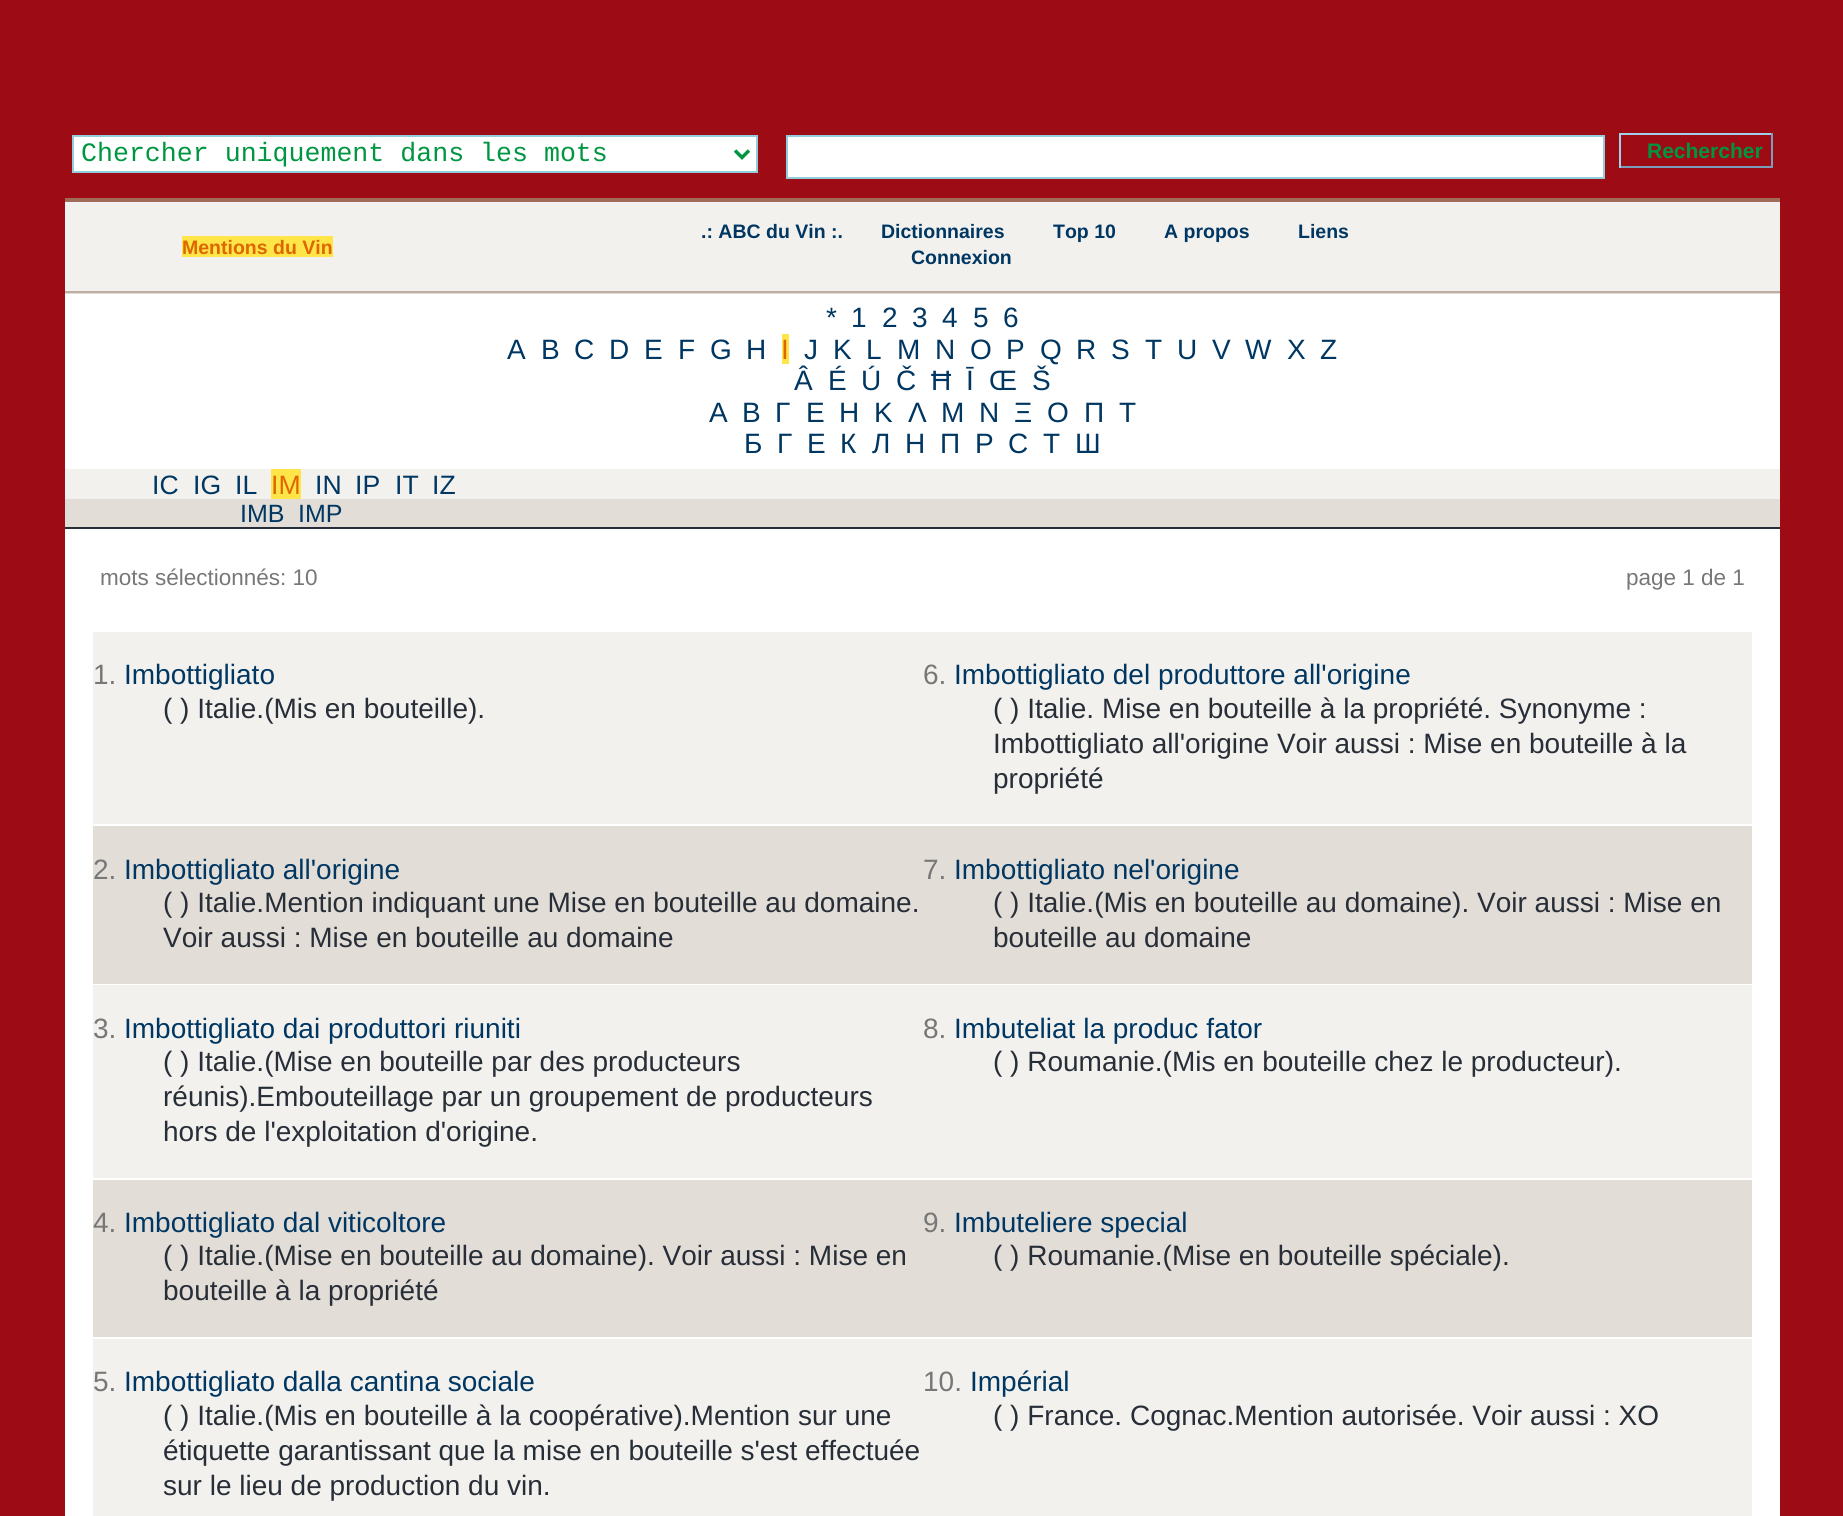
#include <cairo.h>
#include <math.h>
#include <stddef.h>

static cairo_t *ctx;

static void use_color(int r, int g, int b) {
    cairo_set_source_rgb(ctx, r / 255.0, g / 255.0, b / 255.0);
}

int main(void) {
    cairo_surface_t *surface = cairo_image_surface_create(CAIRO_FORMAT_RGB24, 1843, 1516);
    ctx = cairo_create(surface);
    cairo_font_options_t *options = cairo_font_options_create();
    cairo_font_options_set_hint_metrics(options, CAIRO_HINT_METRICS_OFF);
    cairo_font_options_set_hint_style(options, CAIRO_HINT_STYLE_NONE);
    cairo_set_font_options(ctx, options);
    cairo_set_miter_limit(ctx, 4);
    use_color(157, 12, 21);
    cairo_paint(ctx);
    use_color(255, 255, 255);
    cairo_rectangle(ctx, 73, 136, 684, 36);
    cairo_fill_preserve(ctx);
    use_color(146, 205, 220);
    cairo_stroke(ctx);
    cairo_new_path(ctx);
    cairo_move_to(ctx, 735, 150.5);
    cairo_line_to(ctx, 742, 157.5);
    cairo_line_to(ctx, 749, 150.5);
    use_color(0, 150, 65);
    cairo_set_line_width(ctx, 3.5);
    cairo_stroke(ctx);
    cairo_select_font_face(ctx, "Liberation Mono", CAIRO_FONT_SLANT_NORMAL, CAIRO_FONT_WEIGHT_NORMAL);
    cairo_set_font_size(ctx, 26.6);
    cairo_move_to(ctx, 81, 161);
    cairo_show_text(ctx, "Chercher uniquement dans les mots");
    use_color(255, 255, 255);
    cairo_rectangle(ctx, 787, 136, 817, 42);
    cairo_fill_preserve(ctx);
    use_color(146, 205, 220);
    cairo_set_line_width(ctx, 2);
    cairo_stroke(ctx);
    use_color(160, 208, 236);
    cairo_rectangle(ctx, 1619, 133, 154, 2);
    cairo_fill(ctx);
    use_color(123, 156, 188);
    cairo_rectangle(ctx, 1771, 133, 2, 35);
    cairo_fill(ctx);
    cairo_rectangle(ctx, 1619, 166, 154, 2);
    cairo_fill(ctx);
    use_color(160, 208, 236);
    cairo_rectangle(ctx, 1619, 133, 2, 35);
    cairo_fill(ctx);
    cairo_select_font_face(ctx, "Liberation Sans", CAIRO_FONT_SLANT_NORMAL, CAIRO_FONT_WEIGHT_BOLD);
    cairo_set_font_size(ctx, 21);
    use_color(0, 150, 65);
    cairo_move_to(ctx, 1647, 158);
    cairo_show_text(ctx, "Rechercher");
    use_color(237, 242, 253);
    cairo_rectangle(ctx, 65, 202, 1715, 1);
    cairo_fill(ctx);
    use_color(162, 107, 85);
    cairo_rectangle(ctx, 65, 198, 1715, 4);
    cairo_fill(ctx);
    use_color(242, 241, 238);
    cairo_rectangle(ctx, 65, 203, 1715, 88);
    cairo_fill(ctx);
    use_color(255, 229, 71);
    cairo_rectangle(ctx, 182, 236, 151, 21);
    cairo_fill(ctx);
    cairo_set_font_size(ctx, 19.5);
    use_color(221, 102, 0);
    cairo_move_to(ctx, 182, 254);
    cairo_show_text(ctx, "Mentions du Vin");
    use_color(0, 55, 98);
    cairo_move_to(ctx, 701, 238);
    cairo_show_text(ctx, ".: ABC du Vin :.");
    cairo_move_to(ctx, 881, 238);
    cairo_show_text(ctx, "Dictionnaires");
    cairo_move_to(ctx, 1053, 238);
    cairo_show_text(ctx, "Top 10");
    cairo_move_to(ctx, 1164, 238);
    cairo_show_text(ctx, "A propos");
    cairo_move_to(ctx, 1298, 238);
    cairo_show_text(ctx, "Liens");
    cairo_move_to(ctx, 911, 264);
    cairo_show_text(ctx, "Connexion");
    use_color(226, 221, 215);
    cairo_rectangle(ctx, 65, 293, 1715, 1);
    cairo_fill(ctx);
    use_color(190, 173, 163);
    cairo_rectangle(ctx, 65, 291, 1715, 2);
    cairo_fill(ctx);
    use_color(255, 255, 255);
    cairo_rectangle(ctx, 65, 294, 1715, 175);
    cairo_fill(ctx);
    cairo_select_font_face(ctx, "Liberation Sans", CAIRO_FONT_SLANT_NORMAL, CAIRO_FONT_WEIGHT_NORMAL);
    cairo_set_font_size(ctx, 28);
    use_color(0, 55, 98);
    cairo_move_to(ctx, 826, 327);
    cairo_show_text(ctx, "*");
    cairo_move_to(ctx, 851, 327);
    cairo_show_text(ctx, "1");
    cairo_move_to(ctx, 882, 327);
    cairo_show_text(ctx, "2");
    cairo_move_to(ctx, 912, 327);
    cairo_show_text(ctx, "3");
    cairo_move_to(ctx, 942, 327);
    cairo_show_text(ctx, "4");
    cairo_move_to(ctx, 973, 327);
    cairo_show_text(ctx, "5");
    cairo_move_to(ctx, 1003, 327);
    cairo_show_text(ctx, "6");
    cairo_move_to(ctx, 507, 359);
    cairo_show_text(ctx, "A");
    cairo_move_to(ctx, 541, 359);
    cairo_show_text(ctx, "B");
    cairo_move_to(ctx, 574, 359);
    cairo_show_text(ctx, "C");
    cairo_move_to(ctx, 609, 359);
    cairo_show_text(ctx, "D");
    cairo_move_to(ctx, 644, 359);
    cairo_show_text(ctx, "E");
    cairo_move_to(ctx, 678, 359);
    cairo_show_text(ctx, "F");
    cairo_move_to(ctx, 710, 359);
    cairo_show_text(ctx, "G");
    cairo_move_to(ctx, 746, 359);
    cairo_show_text(ctx, "H");
    use_color(255, 229, 71);
    cairo_rectangle(ctx, 782, 334, 7, 30);
    cairo_fill(ctx);
    use_color(221, 102, 0);
    cairo_move_to(ctx, 781, 359);
    cairo_show_text(ctx, "I");
    use_color(0, 55, 98);
    cairo_move_to(ctx, 804, 359);
    cairo_show_text(ctx, "J");
    cairo_move_to(ctx, 833, 359);
    cairo_show_text(ctx, "K");
    cairo_move_to(ctx, 866, 359);
    cairo_show_text(ctx, "L");
    cairo_move_to(ctx, 897, 359);
    cairo_show_text(ctx, "M");
    cairo_move_to(ctx, 935, 359);
    cairo_show_text(ctx, "N");
    cairo_move_to(ctx, 970, 359);
    cairo_show_text(ctx, "O");
    cairo_move_to(ctx, 1006, 359);
    cairo_show_text(ctx, "P");
    cairo_move_to(ctx, 1040, 359);
    cairo_show_text(ctx, "Q");
    cairo_move_to(ctx, 1076, 359);
    cairo_show_text(ctx, "R");
    cairo_move_to(ctx, 1111, 359);
    cairo_show_text(ctx, "S");
    cairo_move_to(ctx, 1145, 359);
    cairo_show_text(ctx, "T");
    cairo_move_to(ctx, 1177, 359);
    cairo_show_text(ctx, "U");
    cairo_move_to(ctx, 1212, 359);
    cairo_show_text(ctx, "V");
    cairo_move_to(ctx, 1245, 359);
    cairo_show_text(ctx, "W");
    cairo_move_to(ctx, 1287, 359);
    cairo_show_text(ctx, "X");
    cairo_move_to(ctx, 1320, 359);
    cairo_show_text(ctx, "Z");
    cairo_move_to(ctx, 794, 390);
    cairo_show_text(ctx, "Â");
    cairo_move_to(ctx, 828, 390);
    cairo_show_text(ctx, "É");
    cairo_move_to(ctx, 861, 390);
    cairo_show_text(ctx, "Ú");
    cairo_move_to(ctx, 896, 390);
    cairo_show_text(ctx, "Č");
    cairo_move_to(ctx, 931, 390);
    cairo_show_text(ctx, "Ħ");
    cairo_move_to(ctx, 966, 390);
    cairo_show_text(ctx, "Ī");
    cairo_move_to(ctx, 989, 390);
    cairo_show_text(ctx, "Œ");
    cairo_move_to(ctx, 1032, 390);
    cairo_show_text(ctx, "Š");
    cairo_move_to(ctx, 709, 422);
    cairo_show_text(ctx, "Α");
    cairo_move_to(ctx, 742, 422);
    cairo_show_text(ctx, "Β");
    cairo_move_to(ctx, 775, 422);
    cairo_show_text(ctx, "Γ");
    cairo_move_to(ctx, 806, 422);
    cairo_show_text(ctx, "Ε");
    cairo_move_to(ctx, 839, 422);
    cairo_show_text(ctx, "Η");
    cairo_move_to(ctx, 874, 422);
    cairo_show_text(ctx, "Κ");
    cairo_move_to(ctx, 908, 422);
    cairo_show_text(ctx, "Λ");
    cairo_move_to(ctx, 941, 422);
    cairo_show_text(ctx, "Μ");
    cairo_move_to(ctx, 979, 422);
    cairo_show_text(ctx, "Ν");
    cairo_move_to(ctx, 1014, 422);
    cairo_show_text(ctx, "Ξ");
    cairo_move_to(ctx, 1047, 422);
    cairo_show_text(ctx, "Ο");
    cairo_move_to(ctx, 1084, 422);
    cairo_show_text(ctx, "Π");
    cairo_move_to(ctx, 1119, 422);
    cairo_show_text(ctx, "Τ");
    cairo_move_to(ctx, 744, 453);
    cairo_show_text(ctx, "Б");
    cairo_move_to(ctx, 777, 453);
    cairo_show_text(ctx, "Г");
    cairo_move_to(ctx, 807, 453);
    cairo_show_text(ctx, "Е");
    cairo_move_to(ctx, 840, 453);
    cairo_show_text(ctx, "К");
    cairo_move_to(ctx, 872, 453);
    cairo_show_text(ctx, "Л");
    cairo_move_to(ctx, 905, 453);
    cairo_show_text(ctx, "Н");
    cairo_move_to(ctx, 940, 453);
    cairo_show_text(ctx, "П");
    cairo_move_to(ctx, 975, 453);
    cairo_show_text(ctx, "Р");
    cairo_move_to(ctx, 1008, 453);
    cairo_show_text(ctx, "С");
    cairo_move_to(ctx, 1043, 453);
    cairo_show_text(ctx, "Т");
    cairo_move_to(ctx, 1075, 453);
    cairo_show_text(ctx, "Ш");
    use_color(242, 241, 238);
    cairo_rectangle(ctx, 65, 469, 1715, 30);
    cairo_fill(ctx);
    cairo_set_font_size(ctx, 26.6);
    use_color(0, 55, 98);
    cairo_move_to(ctx, 152, 494);
    cairo_show_text(ctx, "IC");
    cairo_move_to(ctx, 193, 494);
    cairo_show_text(ctx, "IG");
    cairo_move_to(ctx, 235, 494);
    cairo_show_text(ctx, "IL");
    use_color(255, 229, 71);
    cairo_rectangle(ctx, 271, 469, 30, 30);
    cairo_fill(ctx);
    use_color(221, 102, 0);
    cairo_move_to(ctx, 271, 494);
    cairo_show_text(ctx, "IM");
    use_color(0, 55, 98);
    cairo_move_to(ctx, 315, 494);
    cairo_show_text(ctx, "IN");
    cairo_move_to(ctx, 355, 494);
    cairo_show_text(ctx, "IP");
    cairo_move_to(ctx, 395, 494);
    cairo_show_text(ctx, "IT");
    cairo_move_to(ctx, 432, 494);
    cairo_show_text(ctx, "IZ");
    use_color(226, 221, 215);
    cairo_rectangle(ctx, 65, 499, 1715, 28);
    cairo_fill(ctx);
    use_color(40, 46, 55);
    cairo_rectangle(ctx, 65, 527, 1715, 2);
    cairo_fill(ctx);
    cairo_set_font_size(ctx, 25);
    use_color(0, 55, 98);
    cairo_move_to(ctx, 240, 522);
    cairo_show_text(ctx, "IMB");
    cairo_move_to(ctx, 298, 522);
    cairo_show_text(ctx, "IMP");
    use_color(255, 255, 255);
    cairo_rectangle(ctx, 65, 529, 1715, 987);
    cairo_fill(ctx);
    cairo_set_font_size(ctx, 22.5);
    use_color(119, 119, 119);
    cairo_move_to(ctx, 100, 585);
    cairo_show_text(ctx, "mots sélectionnés: 10");
    cairo_move_to(ctx, 1626, 585);
    cairo_show_text(ctx, "page 1 de 1");
    use_color(242, 241, 238);
    cairo_rectangle(ctx, 93, 632, 1659, 192);
    cairo_fill(ctx);
    cairo_set_font_size(ctx, 28);
    use_color(119, 119, 119);
    cairo_move_to(ctx, 93, 684);
    cairo_show_text(ctx, "1.");
    use_color(0, 55, 98);
    cairo_move_to(ctx, 124, 684);
    cairo_show_text(ctx, "Imbottigliato");
    use_color(40, 46, 55);
    cairo_move_to(ctx, 163, 718);
    cairo_show_text(ctx, "( ) Italie.(Mis en bouteille).");
    use_color(119, 119, 119);
    cairo_move_to(ctx, 923, 684);
    cairo_show_text(ctx, "6.");
    use_color(0, 55, 98);
    cairo_move_to(ctx, 954, 684);
    cairo_show_text(ctx, "Imbottigliato del produttore all'origine");
    use_color(40, 46, 55);
    cairo_move_to(ctx, 993, 718);
    cairo_show_text(ctx, "( ) Italie. Mise en bouteille à la propriété. Synonyme :");
    cairo_move_to(ctx, 993, 753);
    cairo_show_text(ctx, "Imbottigliato all'origine Voir aussi : Mise en bouteille à la");
    cairo_move_to(ctx, 993, 788);
    cairo_show_text(ctx, "propriété");
    use_color(226, 221, 215);
    cairo_rectangle(ctx, 93, 826, 1659, 158);
    cairo_fill(ctx);
    use_color(119, 119, 119);
    cairo_move_to(ctx, 93, 879);
    cairo_show_text(ctx, "2.");
    use_color(0, 55, 98);
    cairo_move_to(ctx, 124, 879);
    cairo_show_text(ctx, "Imbottigliato all'origine");
    use_color(40, 46, 55);
    cairo_move_to(ctx, 163, 912);
    cairo_show_text(ctx, "( ) Italie.Mention indiquant une Mise en bouteille au domaine.");
    cairo_move_to(ctx, 163, 947);
    cairo_show_text(ctx, "Voir aussi : Mise en bouteille au domaine");
    use_color(119, 119, 119);
    cairo_move_to(ctx, 923, 879);
    cairo_show_text(ctx, "7.");
    use_color(0, 55, 98);
    cairo_move_to(ctx, 954, 879);
    cairo_show_text(ctx, "Imbottigliato nel'origine");
    use_color(40, 46, 55);
    cairo_move_to(ctx, 993, 912);
    cairo_show_text(ctx, "( ) Italie.(Mis en bouteille au domaine). Voir aussi : Mise en");
    cairo_move_to(ctx, 993, 947);
    cairo_show_text(ctx, "bouteille au domaine");
    use_color(242, 241, 238);
    cairo_rectangle(ctx, 93, 985, 1659, 193);
    cairo_fill(ctx);
    use_color(119, 119, 119);
    cairo_move_to(ctx, 93, 1038);
    cairo_show_text(ctx, "3.");
    use_color(0, 55, 98);
    cairo_move_to(ctx, 124, 1038);
    cairo_show_text(ctx, "Imbottigliato dai produttori riuniti");
    use_color(40, 46, 55);
    cairo_move_to(ctx, 163, 1071);
    cairo_show_text(ctx, "( ) Italie.(Mise en bouteille par des producteurs");
    cairo_move_to(ctx, 163, 1106);
    cairo_show_text(ctx, "réunis).Embouteillage par un groupement de producteurs");
    cairo_move_to(ctx, 163, 1141);
    cairo_show_text(ctx, "hors de l'exploitation d'origine.");
    use_color(119, 119, 119);
    cairo_move_to(ctx, 923, 1038);
    cairo_show_text(ctx, "8.");
    use_color(0, 55, 98);
    cairo_move_to(ctx, 954, 1038);
    cairo_show_text(ctx, "Imbuteliat la produc fator");
    use_color(40, 46, 55);
    cairo_move_to(ctx, 993, 1071);
    cairo_show_text(ctx, "( ) Roumanie.(Mis en bouteille chez le producteur).");
    use_color(226, 221, 215);
    cairo_rectangle(ctx, 93, 1180, 1659, 157);
    cairo_fill(ctx);
    use_color(119, 119, 119);
    cairo_move_to(ctx, 93, 1232);
    cairo_show_text(ctx, "4.");
    use_color(0, 55, 98);
    cairo_move_to(ctx, 124, 1232);
    cairo_show_text(ctx, "Imbottigliato dal viticoltore");
    use_color(40, 46, 55);
    cairo_move_to(ctx, 163, 1265);
    cairo_show_text(ctx, "( ) Italie.(Mise en bouteille au domaine). Voir aussi : Mise en");
    cairo_move_to(ctx, 163, 1300);
    cairo_show_text(ctx, "bouteille à la propriété");
    use_color(119, 119, 119);
    cairo_move_to(ctx, 923, 1232);
    cairo_show_text(ctx, "9.");
    use_color(0, 55, 98);
    cairo_move_to(ctx, 954, 1232);
    cairo_show_text(ctx, "Imbuteliere special");
    use_color(40, 46, 55);
    cairo_move_to(ctx, 993, 1265);
    cairo_show_text(ctx, "( ) Roumanie.(Mise en bouteille spéciale).");
    use_color(242, 241, 238);
    cairo_rectangle(ctx, 93, 1339, 1659, 177);
    cairo_fill(ctx);
    use_color(119, 119, 119);
    cairo_move_to(ctx, 93, 1391);
    cairo_show_text(ctx, "5.");
    use_color(0, 55, 98);
    cairo_move_to(ctx, 124, 1391);
    cairo_show_text(ctx, "Imbottigliato dalla cantina sociale");
    use_color(40, 46, 55);
    cairo_move_to(ctx, 163, 1425);
    cairo_show_text(ctx, "( ) Italie.(Mis en bouteille à la coopérative).Mention sur une");
    cairo_move_to(ctx, 163, 1460);
    cairo_show_text(ctx, "étiquette garantissant que la mise en bouteille s'est effectuée");
    cairo_move_to(ctx, 163, 1495);
    cairo_show_text(ctx, "sur le lieu de production du vin.");
    use_color(119, 119, 119);
    cairo_move_to(ctx, 923, 1391);
    cairo_show_text(ctx, "10.");
    use_color(0, 55, 98);
    cairo_move_to(ctx, 970, 1391);
    cairo_show_text(ctx, "Impérial");
    use_color(40, 46, 55);
    cairo_move_to(ctx, 993, 1425);
    cairo_show_text(ctx, "( ) France. Cognac.Mention autorisée. Voir aussi : XO");
    cairo_surface_write_to_png(surface, "result.png");
    cairo_font_options_destroy(options);
    cairo_destroy(ctx);
    cairo_surface_destroy(surface);
    return 0;
}
